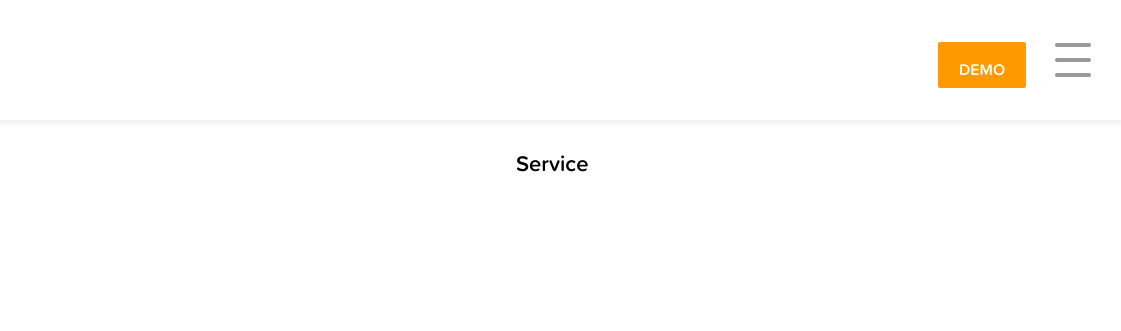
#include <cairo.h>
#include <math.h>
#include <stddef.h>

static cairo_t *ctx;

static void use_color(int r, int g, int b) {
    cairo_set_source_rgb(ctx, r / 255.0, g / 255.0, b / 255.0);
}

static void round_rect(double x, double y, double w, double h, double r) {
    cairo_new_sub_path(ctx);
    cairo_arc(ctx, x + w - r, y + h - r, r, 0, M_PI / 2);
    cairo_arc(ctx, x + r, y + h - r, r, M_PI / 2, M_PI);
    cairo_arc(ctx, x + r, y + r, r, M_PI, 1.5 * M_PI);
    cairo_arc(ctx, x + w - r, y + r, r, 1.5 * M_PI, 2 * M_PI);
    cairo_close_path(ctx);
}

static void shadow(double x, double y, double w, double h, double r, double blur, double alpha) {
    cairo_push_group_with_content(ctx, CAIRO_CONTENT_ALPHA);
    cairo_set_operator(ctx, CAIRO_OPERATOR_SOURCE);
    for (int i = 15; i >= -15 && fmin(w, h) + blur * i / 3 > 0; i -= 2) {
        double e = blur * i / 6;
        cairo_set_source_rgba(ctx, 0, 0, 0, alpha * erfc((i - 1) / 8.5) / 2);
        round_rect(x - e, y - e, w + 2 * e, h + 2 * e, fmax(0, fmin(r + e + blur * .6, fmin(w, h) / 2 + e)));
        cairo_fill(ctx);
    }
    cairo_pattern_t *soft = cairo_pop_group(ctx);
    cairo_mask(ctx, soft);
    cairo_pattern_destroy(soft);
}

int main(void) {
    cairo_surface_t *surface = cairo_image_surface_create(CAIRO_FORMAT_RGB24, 1121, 331);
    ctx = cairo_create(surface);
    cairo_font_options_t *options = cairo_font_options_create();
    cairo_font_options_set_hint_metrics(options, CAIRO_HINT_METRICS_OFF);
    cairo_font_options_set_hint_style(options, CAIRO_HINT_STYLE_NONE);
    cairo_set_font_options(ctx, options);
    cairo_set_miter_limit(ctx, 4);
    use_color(255, 255, 255);
    cairo_paint(ctx);
    use_color(153, 153, 153);
    shadow(0, 3, 1121, 120, 0, 3, 0.16);
    use_color(255, 255, 255);
    cairo_rectangle(ctx, 0, 0, 1121, 120);
    cairo_fill(ctx);
    use_color(255, 153, 0);
    round_rect(938, 42, 88, 36, 2);
    cairo_fill(ctx);
    round_rect(938, 52, 88, 36, 2);
    cairo_fill(ctx);
    cairo_select_font_face(ctx, "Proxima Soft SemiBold", CAIRO_FONT_SLANT_NORMAL, CAIRO_FONT_WEIGHT_NORMAL);
    cairo_set_font_size(ctx, 16);
    use_color(255, 255, 255);
    cairo_move_to(ctx, 959, 75);
    cairo_show_text(ctx, "DEMO");
    use_color(153, 153, 153);
    round_rect(1055, 58, 36, 4, 2);
    cairo_fill(ctx);
    round_rect(1055, 43, 36, 4, 2);
    cairo_fill(ctx);
    round_rect(1055, 73, 36, 4, 2);
    cairo_fill(ctx);
    cairo_set_font_size(ctx, 22);
    use_color(0, 0, 0);
    cairo_move_to(ctx, 516, 171);
    cairo_show_text(ctx, "Service");
    cairo_surface_write_to_png(surface, "result.png");
    cairo_font_options_destroy(options);
    cairo_destroy(ctx);
    cairo_surface_destroy(surface);
    return 0;
}
